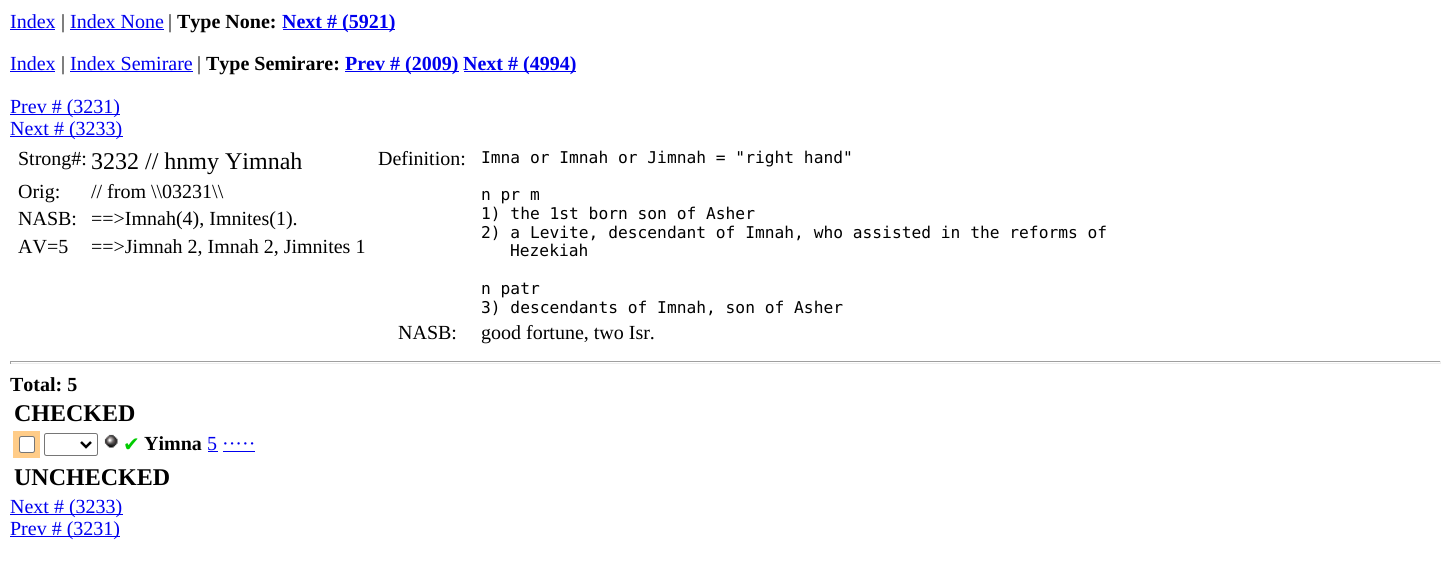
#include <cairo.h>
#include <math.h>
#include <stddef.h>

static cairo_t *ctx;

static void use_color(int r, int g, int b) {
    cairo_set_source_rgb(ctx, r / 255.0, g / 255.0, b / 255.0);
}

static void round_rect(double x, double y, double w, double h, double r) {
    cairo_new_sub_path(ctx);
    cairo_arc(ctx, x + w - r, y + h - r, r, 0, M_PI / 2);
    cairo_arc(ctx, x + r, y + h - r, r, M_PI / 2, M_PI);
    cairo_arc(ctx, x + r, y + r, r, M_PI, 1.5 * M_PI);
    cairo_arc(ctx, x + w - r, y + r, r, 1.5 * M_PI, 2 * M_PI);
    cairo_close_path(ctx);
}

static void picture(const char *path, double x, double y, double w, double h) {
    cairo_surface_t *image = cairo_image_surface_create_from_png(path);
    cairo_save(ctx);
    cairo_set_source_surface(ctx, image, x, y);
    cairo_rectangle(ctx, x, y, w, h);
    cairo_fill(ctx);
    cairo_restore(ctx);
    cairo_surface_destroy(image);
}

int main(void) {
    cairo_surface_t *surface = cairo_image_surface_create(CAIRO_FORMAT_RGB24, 1451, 565);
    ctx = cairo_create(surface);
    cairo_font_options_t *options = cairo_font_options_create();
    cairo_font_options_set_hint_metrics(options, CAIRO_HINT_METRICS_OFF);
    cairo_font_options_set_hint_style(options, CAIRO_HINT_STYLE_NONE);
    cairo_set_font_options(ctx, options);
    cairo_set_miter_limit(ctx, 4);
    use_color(255, 255, 255);
    cairo_paint(ctx);
    cairo_select_font_face(ctx, "Liberation Serif", CAIRO_FONT_SLANT_NORMAL, CAIRO_FONT_WEIGHT_NORMAL);
    cairo_set_font_size(ctx, 20);
    use_color(0, 0, 238);
    cairo_move_to(ctx, 10, 28);
    cairo_show_text(ctx, "Index");
    cairo_rectangle(ctx, 10, 29, 45, 1);
    cairo_fill(ctx);
    use_color(0, 0, 0);
    cairo_move_to(ctx, 61, 28);
    cairo_show_text(ctx, "|");
    use_color(0, 0, 238);
    cairo_move_to(ctx, 70, 28);
    cairo_show_text(ctx, "Index None");
    cairo_rectangle(ctx, 70, 29, 94, 1);
    cairo_fill(ctx);
    use_color(0, 0, 0);
    cairo_move_to(ctx, 168, 28);
    cairo_show_text(ctx, "|");
    cairo_select_font_face(ctx, "Liberation Serif", CAIRO_FONT_SLANT_NORMAL, CAIRO_FONT_WEIGHT_BOLD);
    cairo_move_to(ctx, 177, 28);
    cairo_show_text(ctx, "Type None:");
    use_color(0, 0, 238);
    cairo_rectangle(ctx, 283, 29, 112, 1);
    cairo_fill(ctx);
    cairo_move_to(ctx, 282, 28);
    cairo_show_text(ctx, "Next # (5921)");
    cairo_select_font_face(ctx, "Liberation Serif", CAIRO_FONT_SLANT_NORMAL, CAIRO_FONT_WEIGHT_NORMAL);
    cairo_move_to(ctx, 10, 70);
    cairo_show_text(ctx, "Index");
    cairo_rectangle(ctx, 10, 71, 45, 1);
    cairo_fill(ctx);
    use_color(0, 0, 0);
    cairo_move_to(ctx, 61, 70);
    cairo_show_text(ctx, "|");
    use_color(0, 0, 238);
    cairo_move_to(ctx, 70, 70);
    cairo_show_text(ctx, "Index Semirare");
    cairo_rectangle(ctx, 70, 71, 123, 1);
    cairo_fill(ctx);
    use_color(0, 0, 0);
    cairo_move_to(ctx, 197, 70);
    cairo_show_text(ctx, "|");
    cairo_select_font_face(ctx, "Liberation Serif", CAIRO_FONT_SLANT_NORMAL, CAIRO_FONT_WEIGHT_BOLD);
    cairo_move_to(ctx, 206, 70);
    cairo_show_text(ctx, "Type Semirare:");
    use_color(0, 0, 238);
    cairo_rectangle(ctx, 345, 71, 114, 1);
    cairo_fill(ctx);
    cairo_move_to(ctx, 345, 70);
    cairo_show_text(ctx, "Prev # (2009)");
    cairo_rectangle(ctx, 464, 71, 112, 1);
    cairo_fill(ctx);
    cairo_move_to(ctx, 463, 70);
    cairo_show_text(ctx, "Next # (4994)");
    cairo_rectangle(ctx, 10, 114, 110, 1);
    cairo_fill(ctx);
    cairo_select_font_face(ctx, "Liberation Serif", CAIRO_FONT_SLANT_NORMAL, CAIRO_FONT_WEIGHT_NORMAL);
    cairo_move_to(ctx, 10, 113);
    cairo_show_text(ctx, "Prev # (3231)");
    cairo_rectangle(ctx, 10, 136, 113, 1);
    cairo_fill(ctx);
    cairo_move_to(ctx, 10, 135);
    cairo_show_text(ctx, "Next # (3233)");
    use_color(0, 0, 0);
    cairo_move_to(ctx, 18, 165);
    cairo_show_text(ctx, "Strong#:");
    cairo_set_font_size(ctx, 24);
    cairo_move_to(ctx, 91, 169);
    cairo_show_text(ctx, "3232 // hnmy Yimnah");
    cairo_set_font_size(ctx, 20);
    cairo_move_to(ctx, 18, 198);
    cairo_show_text(ctx, "Orig:");
    cairo_move_to(ctx, 91, 198);
    cairo_show_text(ctx, "// from \\\\03231\\\\");
    cairo_move_to(ctx, 18, 225);
    cairo_show_text(ctx, "NASB:");
    cairo_move_to(ctx, 91, 225);
    cairo_show_text(ctx, "==>Imnah(4), Imnites(1).");
    cairo_move_to(ctx, 18, 253);
    cairo_show_text(ctx, "AV=5");
    cairo_move_to(ctx, 91, 253);
    cairo_show_text(ctx, "==>Jimnah 2, Imnah 2, Jimnites 1");
    cairo_move_to(ctx, 378, 165);
    cairo_show_text(ctx, "Definition:");
    cairo_select_font_face(ctx, "DejaVu Sans Mono", CAIRO_FONT_SLANT_NORMAL, CAIRO_FONT_WEIGHT_NORMAL);
    cairo_set_font_size(ctx, 16.25);
    cairo_move_to(ctx, 481, 163);
    cairo_show_text(ctx, "Imna or Imnah or Jimnah = \"right hand\"");
    cairo_move_to(ctx, 481, 200);
    cairo_show_text(ctx, "n pr m");
    cairo_move_to(ctx, 481, 219);
    cairo_show_text(ctx, "1) the 1st born son of Asher");
    cairo_move_to(ctx, 481, 238);
    cairo_show_text(ctx, "2) a Levite, descendant of Imnah, who assisted in the reforms of");
    cairo_move_to(ctx, 510, 256);
    cairo_show_text(ctx, "Hezekiah");
    cairo_move_to(ctx, 481, 294);
    cairo_show_text(ctx, "n patr");
    cairo_move_to(ctx, 481, 313);
    cairo_show_text(ctx, "3) descendants of Imnah, son of Asher");
    cairo_select_font_face(ctx, "Liberation Serif", CAIRO_FONT_SLANT_NORMAL, CAIRO_FONT_WEIGHT_NORMAL);
    cairo_set_font_size(ctx, 20);
    cairo_move_to(ctx, 398, 339);
    cairo_show_text(ctx, "NASB:");
    cairo_move_to(ctx, 481, 339);
    cairo_show_text(ctx, "good fortune, two Isr.");
    use_color(159, 159, 159);
    cairo_rectangle(ctx, 10, 361, 1431, 1);
    cairo_fill(ctx);
    use_color(238, 238, 238);
    cairo_rectangle(ctx, 1440, 361, 1, 3);
    cairo_fill(ctx);
    cairo_rectangle(ctx, 10, 363, 1431, 1);
    cairo_fill(ctx);
    use_color(159, 159, 159);
    cairo_rectangle(ctx, 10, 361, 1, 3);
    cairo_fill(ctx);
    cairo_select_font_face(ctx, "Liberation Serif", CAIRO_FONT_SLANT_NORMAL, CAIRO_FONT_WEIGHT_BOLD);
    use_color(0, 0, 0);
    cairo_move_to(ctx, 10, 391);
    cairo_show_text(ctx, "Total: 5");
    cairo_set_font_size(ctx, 24);
    cairo_move_to(ctx, 14, 421);
    cairo_show_text(ctx, "CHECKED");
    use_color(255, 204, 136);
    cairo_rectangle(ctx, 13, 431, 27, 27);
    cairo_fill(ctx);
    use_color(255, 255, 255);
    round_rect(19.5, 436.5, 15, 16, 2);
    cairo_fill_preserve(ctx);
    use_color(118, 118, 118);
    cairo_set_line_width(ctx, 1);
    cairo_stroke(ctx);
    round_rect(44.5, 433.5, 53, 22, 2);
    cairo_stroke(ctx);
    cairo_new_path(ctx);
    cairo_move_to(ctx, 81, 442);
    cairo_line_to(ctx, 86, 447);
    cairo_line_to(ctx, 91, 442);
    use_color(0, 0, 0);
    cairo_set_line_width(ctx, 2.5);
    cairo_stroke(ctx);
    picture("img1.png", 104, 434, 14, 14);
    cairo_select_font_face(ctx, "DejaVu Sans", CAIRO_FONT_SLANT_NORMAL, CAIRO_FONT_WEIGHT_NORMAL);
    cairo_set_font_size(ctx, 20);
    use_color(0, 204, 0);
    cairo_move_to(ctx, 123, 451);
    cairo_show_text(ctx, "✔");
    cairo_select_font_face(ctx, "Liberation Serif", CAIRO_FONT_SLANT_NORMAL, CAIRO_FONT_WEIGHT_BOLD);
    use_color(0, 0, 0);
    cairo_move_to(ctx, 144, 450);
    cairo_show_text(ctx, "Yimna");
    cairo_select_font_face(ctx, "Liberation Serif", CAIRO_FONT_SLANT_NORMAL, CAIRO_FONT_WEIGHT_NORMAL);
    use_color(0, 0, 238);
    cairo_move_to(ctx, 207, 450);
    cairo_show_text(ctx, "5 ·····");
    cairo_rectangle(ctx, 208, 451, 10, 1);
    cairo_fill(ctx);
    cairo_rectangle(ctx, 223, 451, 32, 1);
    cairo_fill(ctx);
    cairo_select_font_face(ctx, "Liberation Serif", CAIRO_FONT_SLANT_NORMAL, CAIRO_FONT_WEIGHT_BOLD);
    cairo_set_font_size(ctx, 24);
    use_color(0, 0, 0);
    cairo_move_to(ctx, 14, 485);
    cairo_show_text(ctx, "UNCHECKED");
    use_color(0, 0, 238);
    cairo_rectangle(ctx, 10, 514, 113, 1);
    cairo_fill(ctx);
    cairo_select_font_face(ctx, "Liberation Serif", CAIRO_FONT_SLANT_NORMAL, CAIRO_FONT_WEIGHT_NORMAL);
    cairo_set_font_size(ctx, 20);
    cairo_move_to(ctx, 10, 513);
    cairo_show_text(ctx, "Next # (3233)");
    cairo_rectangle(ctx, 10, 536, 110, 1);
    cairo_fill(ctx);
    cairo_move_to(ctx, 10, 535);
    cairo_show_text(ctx, "Prev # (3231)");
    cairo_surface_write_to_png(surface, "result.png");
    cairo_font_options_destroy(options);
    cairo_destroy(ctx);
    cairo_surface_destroy(surface);
    return 0;
}
